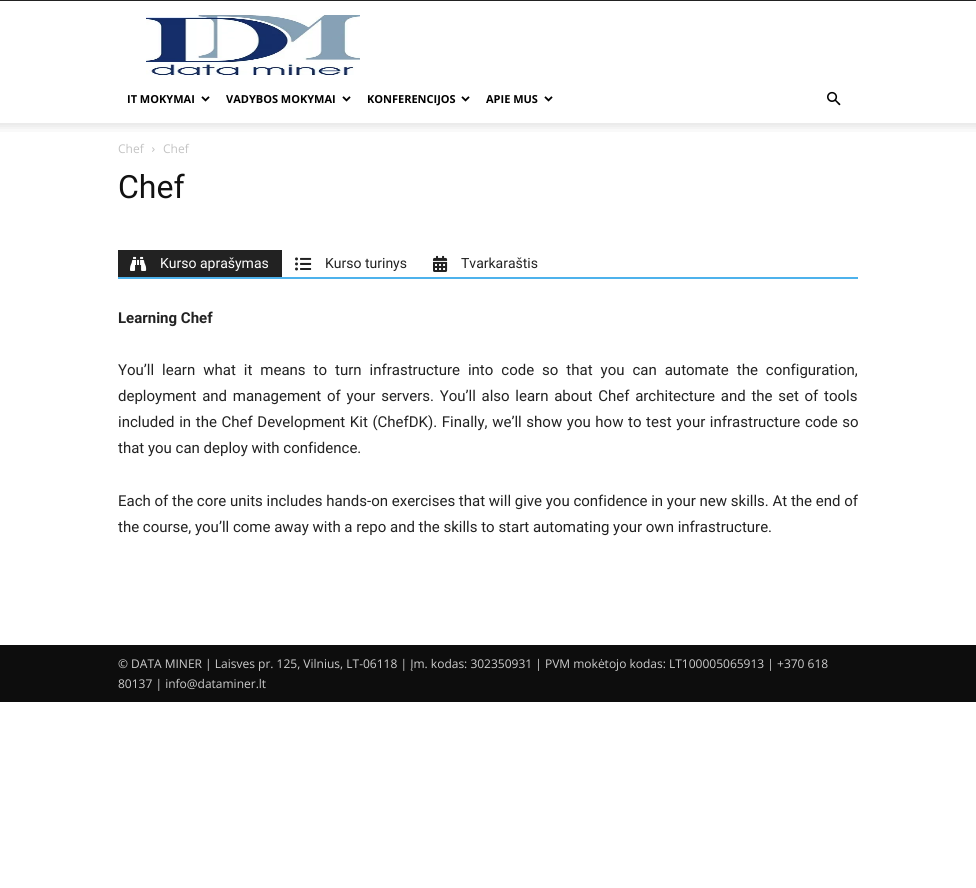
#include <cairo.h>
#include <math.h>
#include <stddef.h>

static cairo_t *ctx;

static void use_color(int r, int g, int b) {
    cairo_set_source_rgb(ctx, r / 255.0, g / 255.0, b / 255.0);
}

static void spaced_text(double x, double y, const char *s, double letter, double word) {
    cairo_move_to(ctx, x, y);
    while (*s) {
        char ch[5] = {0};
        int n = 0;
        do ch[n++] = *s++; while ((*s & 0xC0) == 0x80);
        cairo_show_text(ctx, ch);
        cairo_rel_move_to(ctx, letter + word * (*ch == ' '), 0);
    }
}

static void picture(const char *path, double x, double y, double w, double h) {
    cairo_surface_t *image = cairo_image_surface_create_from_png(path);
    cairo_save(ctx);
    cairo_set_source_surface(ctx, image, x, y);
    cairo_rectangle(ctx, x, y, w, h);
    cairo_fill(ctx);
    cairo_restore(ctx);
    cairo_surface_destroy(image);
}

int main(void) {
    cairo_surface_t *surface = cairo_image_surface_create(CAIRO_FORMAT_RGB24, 976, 888);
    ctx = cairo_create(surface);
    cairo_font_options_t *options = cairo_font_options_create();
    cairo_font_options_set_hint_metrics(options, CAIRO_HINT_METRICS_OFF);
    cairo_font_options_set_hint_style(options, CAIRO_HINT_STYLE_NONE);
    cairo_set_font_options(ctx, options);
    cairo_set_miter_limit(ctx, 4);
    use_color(255, 255, 255);
    cairo_paint(ctx);
    use_color(34, 34, 34);
    cairo_rectangle(ctx, 0, 0, 976, 1);
    cairo_fill(ctx);
    picture("img1.png", 146, 15, 214, 60);
    cairo_select_font_face(ctx, "Open Sans", CAIRO_FONT_SLANT_NORMAL, CAIRO_FONT_WEIGHT_BOLD);
    cairo_set_font_size(ctx, 11);
    use_color(0, 0, 0);
    cairo_move_to(ctx, 127, 103);
    cairo_show_text(ctx, "IT MOKYMAI");
    picture("img2.png", 201, 96, 9, 6);
    cairo_move_to(ctx, 226, 103);
    cairo_show_text(ctx, "VADYBOS MOKYMAI");
    picture("img2.png", 342, 96, 9, 6);
    cairo_move_to(ctx, 367, 103);
    cairo_show_text(ctx, "KONFERENCIJOS");
    picture("img2.png", 461, 96, 9, 6);
    cairo_move_to(ctx, 486, 103);
    cairo_show_text(ctx, "APIE MUS");
    picture("img2.png", 544, 96, 9, 6);
    picture("img3.png", 827, 91, 14, 15);
    picture("img4.png", 0, 123, 976, 9);
    cairo_select_font_face(ctx, "Open Sans", CAIRO_FONT_SLANT_NORMAL, CAIRO_FONT_WEIGHT_NORMAL);
    cairo_set_font_size(ctx, 12);
    use_color(195, 195, 195);
    cairo_move_to(ctx, 118, 153);
    cairo_show_text(ctx, "Chef");
    picture("img5.png", 152, 147, 3, 5);
    cairo_move_to(ctx, 163, 153);
    cairo_show_text(ctx, "Chef");
    cairo_select_font_face(ctx, "Roboto", CAIRO_FONT_SLANT_NORMAL, CAIRO_FONT_WEIGHT_NORMAL);
    cairo_set_font_size(ctx, 32);
    use_color(17, 17, 17);
    cairo_move_to(ctx, 118, 198);
    cairo_show_text(ctx, "Chef");
    use_color(77, 178, 236);
    cairo_rectangle(ctx, 118, 277, 740, 2);
    cairo_fill(ctx);
    use_color(34, 34, 34);
    cairo_rectangle(ctx, 118, 250, 164, 27);
    cairo_fill(ctx);
    picture("img6.png", 130, 256, 17, 15);
    cairo_set_font_size(ctx, 14);
    use_color(255, 255, 255);
    cairo_move_to(ctx, 160, 268);
    cairo_show_text(ctx, "Kurso aprašymas");
    picture("img7.png", 295, 257, 17, 14);
    use_color(34, 34, 34);
    cairo_move_to(ctx, 325, 268);
    cairo_show_text(ctx, "Kurso turinys");
    picture("img8.png", 433, 255, 15, 17);
    cairo_move_to(ctx, 461, 268);
    cairo_show_text(ctx, "Tvarkaraštis");
    cairo_select_font_face(ctx, "Roboto", CAIRO_FONT_SLANT_NORMAL, CAIRO_FONT_WEIGHT_BOLD);
    cairo_set_font_size(ctx, 15);
    cairo_move_to(ctx, 118, 323);
    cairo_show_text(ctx, "Learning Chef");
    cairo_select_font_face(ctx, "Roboto", CAIRO_FONT_SLANT_NORMAL, CAIRO_FONT_WEIGHT_NORMAL);
    spaced_text(118, 375, "You’ll learn what it means to turn infrastructure into code so that you can automate the configuration,", 0, 4.25);
    spaced_text(118, 401, "deployment and management of your servers. You’ll also learn about Chef architecture and the set of tools", 0, 2);
    spaced_text(118, 427, "included in the Chef Development Kit (ChefDK). Finally, we’ll show you how to test your infrastructure code so", 0, 0.9);
    cairo_move_to(ctx, 118, 453);
    cairo_show_text(ctx, "that you can deploy with confidence.");
    cairo_move_to(ctx, 118, 506);
    cairo_show_text(ctx, "Each of the core units includes hands-on exercises that will give you confidence in your new skills. At the end of");
    cairo_move_to(ctx, 118, 532);
    cairo_show_text(ctx, "the course, you’ll come away with a repo and the skills to start automating your own infrastructure.");
    use_color(13, 13, 13);
    cairo_rectangle(ctx, 0, 645, 976, 57);
    cairo_fill(ctx);
    cairo_select_font_face(ctx, "Open Sans", CAIRO_FONT_SLANT_NORMAL, CAIRO_FONT_WEIGHT_NORMAL);
    cairo_set_font_size(ctx, 12);
    use_color(204, 204, 204);
    cairo_move_to(ctx, 118, 668);
    cairo_show_text(ctx, "© DATA MINER | Laisves pr. 125, Vilnius, LT-06118 | Įm. kodas: 302350931 | PVM mokėtojo kodas: LT100005065913 | +370 618");
    cairo_move_to(ctx, 118, 688);
    cairo_show_text(ctx, "80137 | info@dataminer.lt");
    cairo_surface_write_to_png(surface, "result.png");
    cairo_font_options_destroy(options);
    cairo_destroy(ctx);
    cairo_surface_destroy(surface);
    return 0;
}
